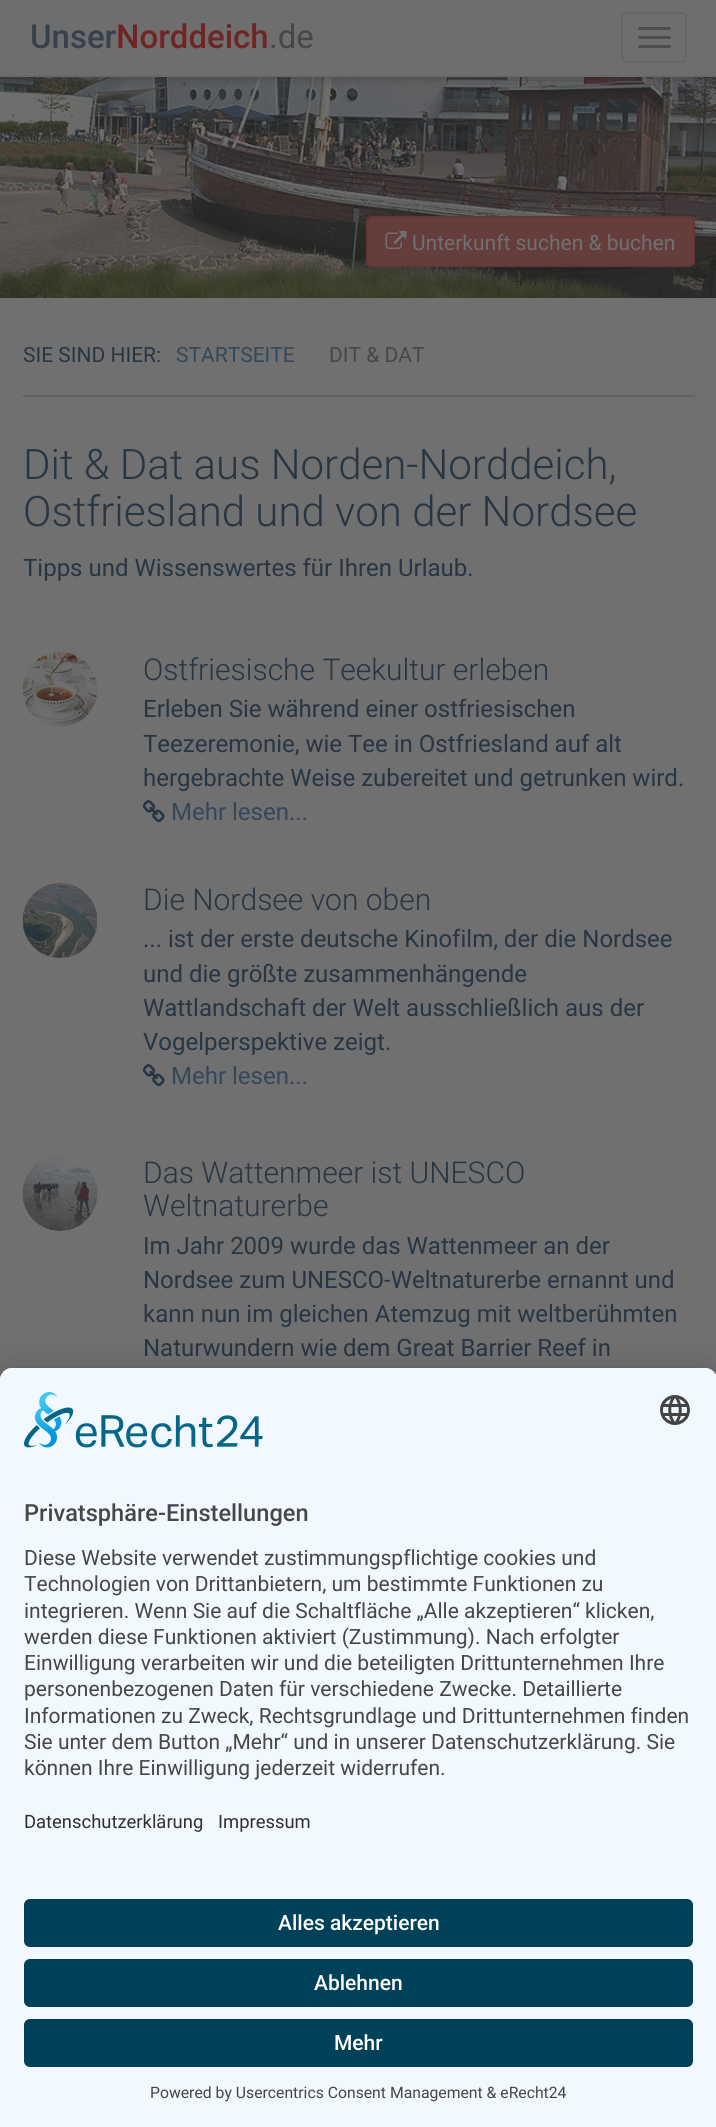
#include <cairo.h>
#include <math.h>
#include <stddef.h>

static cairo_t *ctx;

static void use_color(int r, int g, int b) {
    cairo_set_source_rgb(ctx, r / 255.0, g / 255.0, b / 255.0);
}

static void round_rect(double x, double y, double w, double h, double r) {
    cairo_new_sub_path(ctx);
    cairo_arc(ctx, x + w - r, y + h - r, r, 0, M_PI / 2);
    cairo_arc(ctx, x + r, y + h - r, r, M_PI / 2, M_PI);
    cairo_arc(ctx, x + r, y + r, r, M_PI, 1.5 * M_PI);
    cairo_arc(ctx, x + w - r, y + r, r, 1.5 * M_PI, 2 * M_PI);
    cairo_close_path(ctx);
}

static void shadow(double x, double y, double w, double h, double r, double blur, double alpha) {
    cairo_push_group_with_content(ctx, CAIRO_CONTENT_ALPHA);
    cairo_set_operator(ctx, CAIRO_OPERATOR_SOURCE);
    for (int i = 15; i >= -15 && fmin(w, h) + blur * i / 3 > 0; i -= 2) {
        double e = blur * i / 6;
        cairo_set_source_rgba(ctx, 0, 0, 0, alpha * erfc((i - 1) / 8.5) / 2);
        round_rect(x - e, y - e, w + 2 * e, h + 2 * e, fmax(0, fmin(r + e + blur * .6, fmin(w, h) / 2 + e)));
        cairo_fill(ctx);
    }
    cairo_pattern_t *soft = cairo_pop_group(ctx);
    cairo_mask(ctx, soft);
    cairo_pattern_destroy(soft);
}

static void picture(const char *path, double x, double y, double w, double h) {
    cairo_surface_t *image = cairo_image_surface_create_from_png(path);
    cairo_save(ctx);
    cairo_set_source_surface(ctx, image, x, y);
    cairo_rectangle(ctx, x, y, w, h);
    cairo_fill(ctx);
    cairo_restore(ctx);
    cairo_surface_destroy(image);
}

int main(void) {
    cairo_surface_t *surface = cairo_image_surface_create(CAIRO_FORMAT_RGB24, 716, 2127);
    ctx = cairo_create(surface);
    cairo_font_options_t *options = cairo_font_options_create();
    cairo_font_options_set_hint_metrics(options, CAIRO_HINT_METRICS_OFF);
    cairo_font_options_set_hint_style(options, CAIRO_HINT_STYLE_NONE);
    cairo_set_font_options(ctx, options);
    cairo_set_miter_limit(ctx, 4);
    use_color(112, 112, 112);
    cairo_paint(ctx);
    picture("img1.png", 0, 77, 716, 221);
    use_color(36, 36, 36);
    shadow(0, 3, 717, 77, 0, 4, 0.3);
    use_color(110, 110, 110);
    cairo_rectangle(ctx, 0, 0, 716, 75);
    cairo_fill(ctx);
    use_color(105, 105, 105);
    cairo_rectangle(ctx, 0, 75, 716, 2);
    cairo_fill(ctx);
    cairo_select_font_face(ctx, "Roboto Medium", CAIRO_FONT_SLANT_NORMAL, CAIRO_FONT_WEIGHT_NORMAL);
    cairo_set_font_size(ctx, 33);
    use_color(56, 65, 75);
    cairo_move_to(ctx, 30, 48);
    cairo_show_text(ctx, "Unser");
    use_color(112, 36, 36);
    cairo_move_to(ctx, 116, 48);
    cairo_show_text(ctx, "Norddeich");
    cairo_select_font_face(ctx, "Roboto", CAIRO_FONT_SLANT_NORMAL, CAIRO_FONT_WEIGHT_NORMAL);
    use_color(71, 71, 71);
    cairo_move_to(ctx, 269, 48);
    cairo_show_text(ctx, ".de");
    round_rect(622, 13, 64, 49, 5);
    use_color(102, 102, 102);
    cairo_stroke(ctx);
    use_color(77, 77, 77);
    round_rect(638, 27, 33, 3, 1.5);
    cairo_fill(ctx);
    round_rect(638, 36, 33, 3, 1.5);
    cairo_fill(ctx);
    round_rect(638, 45, 33, 3, 1.5);
    cairo_fill(ctx);
    use_color(36, 36, 36);
    shadow(366, 219, 329, 51, 6, 4, 0.3);
    use_color(101, 61, 59);
    round_rect(367, 217, 327, 49, 5);
    cairo_fill_preserve(ctx);
    use_color(99, 55, 53);
    cairo_stroke(ctx);
    picture("img2.png", 385, 231, 22, 18);
    cairo_set_font_size(ctx, 21);
    use_color(112, 112, 112);
    cairo_move_to(ctx, 412, 250);
    cairo_show_text(ctx, "Unterkunft suchen & buchen");
    use_color(40, 53, 66);
    cairo_move_to(ctx, 23, 362);
    cairo_show_text(ctx, "SIE SIND HIER:");
    use_color(51, 72, 91);
    cairo_move_to(ctx, 176, 362);
    cairo_show_text(ctx, "STARTSEITE");
    use_color(71, 71, 71);
    cairo_move_to(ctx, 329, 362);
    cairo_show_text(ctx, "DIT & DAT");
    use_color(97, 97, 97);
    cairo_rectangle(ctx, 23, 395, 672, 2);
    cairo_fill(ctx);
    cairo_select_font_face(ctx, "Roboto Light", CAIRO_FONT_SLANT_NORMAL, CAIRO_FONT_WEIGHT_NORMAL);
    cairo_set_font_size(ctx, 42);
    use_color(40, 53, 66);
    cairo_move_to(ctx, 23, 479);
    cairo_show_text(ctx, "Dit & Dat aus Norden-Norddeich,");
    cairo_move_to(ctx, 23, 526);
    cairo_show_text(ctx, "Ostfriesland und von der Nordsee");
    cairo_select_font_face(ctx, "Roboto", CAIRO_FONT_SLANT_NORMAL, CAIRO_FONT_WEIGHT_NORMAL);
    cairo_set_font_size(ctx, 24);
    cairo_move_to(ctx, 23, 576);
    cairo_show_text(ctx, "Tipps und Wissenswertes für Ihren Urlaub.");
    picture("img3.png", 22, 652, 76, 75);
    cairo_select_font_face(ctx, "Roboto Light", CAIRO_FONT_SLANT_NORMAL, CAIRO_FONT_WEIGHT_NORMAL);
    cairo_set_font_size(ctx, 30);
    cairo_move_to(ctx, 143, 680);
    cairo_show_text(ctx, "Ostfriesische Teekultur erleben");
    cairo_select_font_face(ctx, "Roboto", CAIRO_FONT_SLANT_NORMAL, CAIRO_FONT_WEIGHT_NORMAL);
    cairo_set_font_size(ctx, 24);
    cairo_move_to(ctx, 143, 717);
    cairo_show_text(ctx, "Erleben Sie während einer ostfriesischen");
    cairo_move_to(ctx, 143, 752);
    cairo_show_text(ctx, "Teezeremonie, wie Tee in Ostfriesland auf alt");
    cairo_move_to(ctx, 143, 786);
    cairo_show_text(ctx, "hergebrachte Weise zubereitet und getrunken wird.");
    picture("img4.png", 143, 800, 22, 22);
    use_color(51, 72, 91);
    cairo_move_to(ctx, 171, 820);
    cairo_show_text(ctx, "Mehr lesen...");
    picture("img5.png", 22, 883, 76, 75);
    cairo_select_font_face(ctx, "Roboto Light", CAIRO_FONT_SLANT_NORMAL, CAIRO_FONT_WEIGHT_NORMAL);
    cairo_set_font_size(ctx, 30);
    use_color(40, 53, 66);
    cairo_move_to(ctx, 143, 910);
    cairo_show_text(ctx, "Die Nordsee von oben");
    cairo_select_font_face(ctx, "Roboto", CAIRO_FONT_SLANT_NORMAL, CAIRO_FONT_WEIGHT_NORMAL);
    cairo_set_font_size(ctx, 24);
    cairo_move_to(ctx, 143, 947);
    cairo_show_text(ctx, "... ist der erste deutsche Kinofilm, der die Nordsee");
    cairo_move_to(ctx, 143, 982);
    cairo_show_text(ctx, "und die größte zusammenhängende");
    cairo_move_to(ctx, 143, 1016);
    cairo_show_text(ctx, "Wattlandschaft der Welt ausschließlich aus der");
    cairo_move_to(ctx, 143, 1050);
    cairo_show_text(ctx, "Vogelperspektive zeigt.");
    picture("img4.png", 143, 1064, 22, 22);
    use_color(51, 72, 91);
    cairo_move_to(ctx, 171, 1084);
    cairo_show_text(ctx, "Mehr lesen...");
    picture("img6.png", 22, 1156, 76, 75);
    cairo_select_font_face(ctx, "Roboto Light", CAIRO_FONT_SLANT_NORMAL, CAIRO_FONT_WEIGHT_NORMAL);
    cairo_set_font_size(ctx, 30);
    use_color(40, 53, 66);
    cairo_move_to(ctx, 143, 1183);
    cairo_show_text(ctx, "Das Wattenmeer ist UNESCO");
    cairo_move_to(ctx, 143, 1216);
    cairo_show_text(ctx, "Weltnaturerbe");
    cairo_select_font_face(ctx, "Roboto", CAIRO_FONT_SLANT_NORMAL, CAIRO_FONT_WEIGHT_NORMAL);
    cairo_set_font_size(ctx, 24);
    cairo_move_to(ctx, 143, 1254);
    cairo_show_text(ctx, "Im Jahr 2009 wurde das Wattenmeer an der");
    cairo_move_to(ctx, 143, 1288);
    cairo_show_text(ctx, "Nordsee zum UNESCO-Weltnaturerbe ernannt und");
    cairo_move_to(ctx, 143, 1322);
    cairo_show_text(ctx, "kann nun im gleichen Atemzug mit weltberühmten");
    cairo_move_to(ctx, 143, 1356);
    cairo_show_text(ctx, "Naturwundern wie dem Great Barrier Reef in");
    use_color(0, 0, 0);
    shadow(0, 1398, 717, 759, 12, 21, 0.3);
    shadow(0, 1376, 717, 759, 12, 19.5, 0.22);
    use_color(241, 248, 255);
    cairo_new_path(ctx);
    cairo_move_to(ctx, 12, 1368);
    cairo_line_to(ctx, 705, 1368);
    cairo_curve_to(ctx, 711.5, 1368, 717, 1373.5, 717, 1380);
    cairo_line_to(ctx, 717, 2127);
    cairo_line_to(ctx, 0, 2127);
    cairo_line_to(ctx, 0, 1380);
    cairo_curve_to(ctx, 0, 1373.5, 5.5, 1368, 12, 1368);
    cairo_close_path(ctx);
    cairo_fill(ctx);
    cairo_new_path(ctx);
    cairo_move_to(ctx, 12, 1368);
    cairo_line_to(ctx, 705, 1368);
    cairo_curve_to(ctx, 711.5, 1368, 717, 1373.5, 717, 1380);
    cairo_line_to(ctx, 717, 1881);
    cairo_line_to(ctx, 0, 1881);
    cairo_line_to(ctx, 0, 1380);
    cairo_curve_to(ctx, 0, 1373.5, 5.5, 1368, 12, 1368);
    cairo_close_path(ctx);
    cairo_fill(ctx);
    picture("img7.png", 24, 1392, 239, 56);
    picture("img8.png", 660, 1395, 30, 30);
    cairo_select_font_face(ctx, "Roboto Medium", CAIRO_FONT_SLANT_NORMAL, CAIRO_FONT_WEIGHT_NORMAL);
    cairo_set_font_size(ctx, 23.6);
    use_color(71, 71, 71);
    cairo_move_to(ctx, 24, 1521);
    cairo_show_text(ctx, "Privatsphäre-Einstellungen");
    cairo_select_font_face(ctx, "Roboto", CAIRO_FONT_SLANT_NORMAL, CAIRO_FONT_WEIGHT_NORMAL);
    cairo_set_font_size(ctx, 21);
    cairo_move_to(ctx, 24, 1565);
    cairo_show_text(ctx, "Diese Website verwendet zustimmungspflichtige cookies und");
    cairo_move_to(ctx, 24, 1591);
    cairo_show_text(ctx, "Technologien von Drittanbietern, um bestimmte Funktionen zu");
    cairo_move_to(ctx, 24, 1618);
    cairo_show_text(ctx, "integrieren. Wenn Sie auf die Schaltfläche „Alle akzeptieren“ klicken,");
    cairo_move_to(ctx, 24, 1644);
    cairo_show_text(ctx, "werden diese Funktionen aktiviert (Zustimmung). Nach erfolgter");
    cairo_move_to(ctx, 24, 1670);
    cairo_show_text(ctx, "Einwilligung verarbeiten wir und die beteiligten Drittunternehmen Ihre");
    cairo_move_to(ctx, 24, 1696);
    cairo_show_text(ctx, "personenbezogenen Daten für verschiedene Zwecke. Detaillierte");
    cairo_move_to(ctx, 24, 1723);
    cairo_show_text(ctx, "Informationen zu Zweck, Rechtsgrundlage und Drittunternehmen finden");
    cairo_move_to(ctx, 24, 1749);
    cairo_show_text(ctx, "Sie unter dem Button „Mehr“ und in unserer Datenschutzerklärung. Sie");
    cairo_move_to(ctx, 24, 1775);
    cairo_show_text(ctx, "können Ihre Einwilligung jederzeit widerrufen.");
    cairo_set_font_size(ctx, 18.4);
    use_color(48, 48, 48);
    cairo_move_to(ctx, 24, 1828);
    cairo_show_text(ctx, "Datenschutzerklärung");
    cairo_move_to(ctx, 218, 1828);
    cairo_show_text(ctx, "Impressum");
    use_color(0, 64, 89);
    round_rect(24, 1899, 669, 48, 6);
    cairo_fill(ctx);
    cairo_select_font_face(ctx, "Roboto Medium", CAIRO_FONT_SLANT_NORMAL, CAIRO_FONT_WEIGHT_NORMAL);
    cairo_set_font_size(ctx, 21);
    use_color(255, 255, 255);
    cairo_move_to(ctx, 278, 1930);
    cairo_show_text(ctx, "Alles akzeptieren");
    use_color(0, 64, 89);
    round_rect(24, 1959, 669, 48, 6);
    cairo_fill(ctx);
    use_color(255, 255, 255);
    cairo_move_to(ctx, 314, 1990);
    cairo_show_text(ctx, "Ablehnen");
    use_color(0, 64, 89);
    round_rect(24, 2019, 669, 48, 6);
    cairo_fill(ctx);
    use_color(255, 255, 255);
    cairo_move_to(ctx, 334, 2050);
    cairo_show_text(ctx, "Mehr");
    cairo_select_font_face(ctx, "Roboto", CAIRO_FONT_SLANT_NORMAL, CAIRO_FONT_WEIGHT_NORMAL);
    cairo_set_font_size(ctx, 15.75);
    use_color(71, 71, 71);
    cairo_move_to(ctx, 150, 2098);
    cairo_show_text(ctx, "Powered by Usercentrics Consent Management & eRecht24");
    cairo_surface_write_to_png(surface, "result.png");
    cairo_font_options_destroy(options);
    cairo_destroy(ctx);
    cairo_surface_destroy(surface);
    return 0;
}
